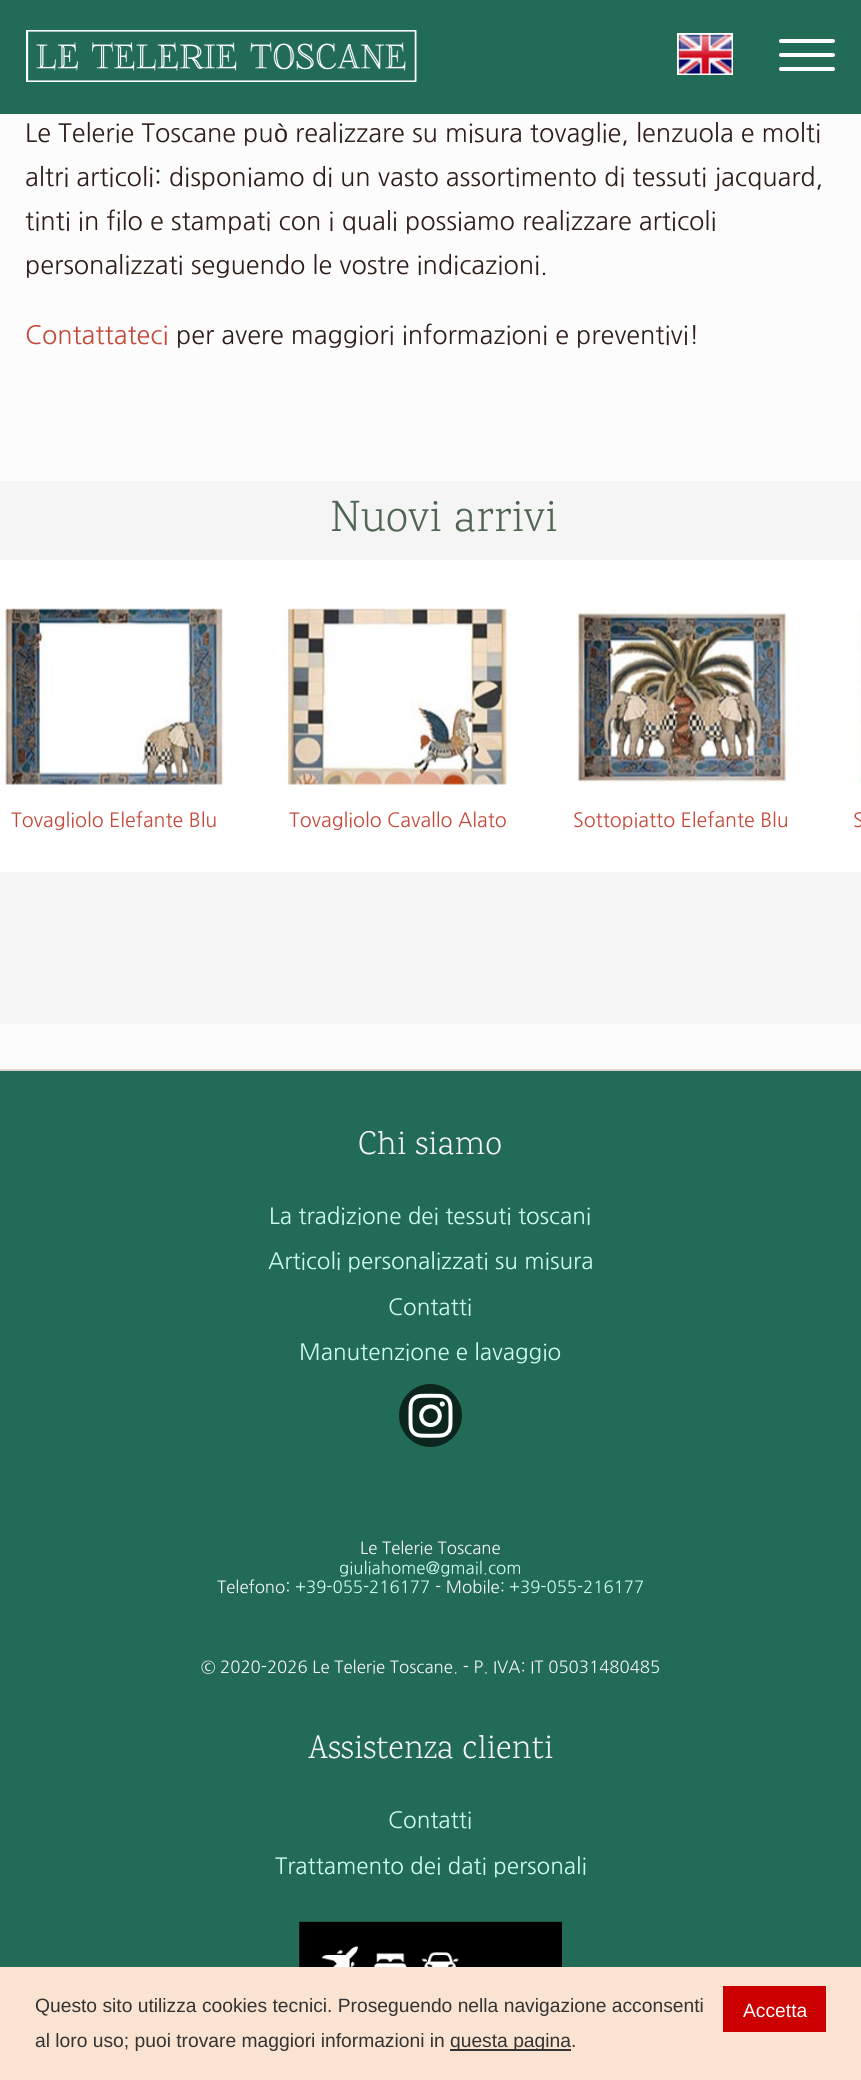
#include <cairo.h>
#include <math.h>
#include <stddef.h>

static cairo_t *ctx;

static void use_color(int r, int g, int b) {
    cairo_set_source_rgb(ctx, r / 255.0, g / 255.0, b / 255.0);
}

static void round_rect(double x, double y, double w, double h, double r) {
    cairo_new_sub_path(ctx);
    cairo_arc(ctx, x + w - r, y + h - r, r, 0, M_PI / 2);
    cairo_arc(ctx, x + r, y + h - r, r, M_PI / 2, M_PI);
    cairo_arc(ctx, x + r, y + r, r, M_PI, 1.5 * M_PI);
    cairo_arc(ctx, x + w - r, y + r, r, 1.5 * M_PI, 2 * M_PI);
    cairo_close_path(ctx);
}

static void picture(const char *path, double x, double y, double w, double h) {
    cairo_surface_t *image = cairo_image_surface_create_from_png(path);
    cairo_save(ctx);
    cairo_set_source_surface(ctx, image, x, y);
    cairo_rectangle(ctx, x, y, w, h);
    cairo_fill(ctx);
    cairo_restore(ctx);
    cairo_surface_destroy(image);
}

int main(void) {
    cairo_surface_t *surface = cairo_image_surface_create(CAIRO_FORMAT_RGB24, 861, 2080);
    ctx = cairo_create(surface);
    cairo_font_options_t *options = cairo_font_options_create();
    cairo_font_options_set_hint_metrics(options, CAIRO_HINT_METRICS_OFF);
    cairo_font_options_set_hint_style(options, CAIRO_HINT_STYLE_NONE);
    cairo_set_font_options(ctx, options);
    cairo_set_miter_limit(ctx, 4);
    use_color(252, 252, 252);
    cairo_paint(ctx);
    use_color(34, 108, 87);
    cairo_rectangle(ctx, 0, 0, 861, 114);
    cairo_fill(ctx);
    cairo_rectangle(ctx, 678, 34, 54, 40);
    use_color(255, 255, 255);
    cairo_stroke(ctx);
    picture("img1.png", 678, 34, 54, 40);
    round_rect(779, 39, 56, 4, 2);
    cairo_fill(ctx);
    round_rect(779, 53, 56, 4, 2);
    cairo_fill(ctx);
    round_rect(779, 67, 56, 4, 2);
    cairo_fill(ctx);
    picture("img2.png", 26, 30, 391, 52);
    use_color(255, 251, 248);
    cairo_rectangle(ctx, 0, 1066, 861, 3);
    cairo_fill(ctx);
    cairo_select_font_face(ctx, "NanumGothic", CAIRO_FONT_SLANT_NORMAL, CAIRO_FONT_WEIGHT_NORMAL);
    cairo_set_font_size(ctx, 25.2);
    use_color(46, 29, 24);
    cairo_move_to(ctx, 25, 142);
    cairo_show_text(ctx, "Le Telerie Toscane pu");
    cairo_select_font_face(ctx, "Liberation Sans", CAIRO_FONT_SLANT_NORMAL, CAIRO_FONT_WEIGHT_NORMAL);
    cairo_move_to(ctx, 274, 142);
    cairo_show_text(ctx, "ò");
    cairo_select_font_face(ctx, "NanumGothic", CAIRO_FONT_SLANT_NORMAL, CAIRO_FONT_WEIGHT_NORMAL);
    cairo_move_to(ctx, 295, 142);
    cairo_show_text(ctx, "realizzare su misura tovaglie, lenzuola e molti");
    cairo_move_to(ctx, 25, 186);
    cairo_show_text(ctx, "altri articoli: disponiamo di un vasto assortimento di tessuti jacquard,");
    cairo_move_to(ctx, 25, 230);
    cairo_show_text(ctx, "tinti in filo e stampati con i quali possiamo realizzare articoli");
    cairo_move_to(ctx, 25, 274);
    cairo_show_text(ctx, "personalizzati seguendo le vostre indicazioni.");
    use_color(196, 71, 57);
    cairo_move_to(ctx, 25, 344);
    cairo_show_text(ctx, "Contattateci");
    use_color(46, 29, 24);
    cairo_move_to(ctx, 176, 344);
    cairo_show_text(ctx, "per avere maggiori informazioni e preventivi!");
    use_color(245, 245, 245);
    cairo_rectangle(ctx, 0, 481, 861, 543);
    cairo_fill(ctx);
    cairo_select_font_face(ctx, "Karma Light", CAIRO_FONT_SLANT_NORMAL, CAIRO_FONT_WEIGHT_NORMAL);
    cairo_set_font_size(ctx, 44.75);
    use_color(80, 102, 83);
    cairo_move_to(ctx, 330, 531);
    cairo_show_text(ctx, "Nuovi arrivi");
    use_color(255, 255, 255);
    cairo_rectangle(ctx, 0, 560, 861, 312);
    cairo_fill(ctx);
    picture("img3.png", 0, 608, 225, 177);
    cairo_select_font_face(ctx, "NanumGothic", CAIRO_FONT_SLANT_NORMAL, CAIRO_FONT_WEIGHT_NORMAL);
    cairo_set_font_size(ctx, 19.6);
    use_color(196, 71, 57);
    cairo_move_to(ctx, 11, 827);
    cairo_show_text(ctx, "Tovagliolo Elefante Blu");
    picture("img4.png", 283, 608, 227, 177);
    cairo_move_to(ctx, 289, 827);
    cairo_show_text(ctx, "Tovagliolo Cavallo Alato");
    picture("img5.png", 570, 609, 216, 175);
    cairo_move_to(ctx, 573, 827);
    cairo_show_text(ctx, "Sottopiatto Elefante Blu");
    picture("img6.png", 850, 610, 11, 174);
    cairo_move_to(ctx, 853, 827);
    cairo_show_text(ctx, "S");
    use_color(34, 108, 87);
    cairo_rectangle(ctx, 0, 1071, 861, 896);
    cairo_fill(ctx);
    use_color(219, 212, 207);
    cairo_rectangle(ctx, 0, 1069, 861, 2);
    cairo_fill(ctx);
    cairo_select_font_face(ctx, "Karma Light", CAIRO_FONT_SLANT_NORMAL, CAIRO_FONT_WEIGHT_NORMAL);
    cairo_set_font_size(ctx, 33.5);
    use_color(245, 245, 245);
    cairo_move_to(ctx, 358, 1154);
    cairo_show_text(ctx, "Chi siamo");
    cairo_select_font_face(ctx, "NanumGothic", CAIRO_FONT_SLANT_NORMAL, CAIRO_FONT_WEIGHT_NORMAL);
    cairo_set_font_size(ctx, 22.4);
    use_color(207, 253, 240);
    cairo_move_to(ctx, 269, 1224);
    cairo_show_text(ctx, "La tradizione dei tessuti toscani");
    cairo_move_to(ctx, 268, 1269);
    cairo_show_text(ctx, "Articoli personalizzati su misura");
    cairo_move_to(ctx, 388, 1315);
    cairo_show_text(ctx, "Contatti");
    cairo_move_to(ctx, 299, 1360);
    cairo_show_text(ctx, "Manutenzione e lavaggio");
    use_color(12, 38, 30);
    cairo_new_path(ctx);
    cairo_arc(ctx, 430.5, 1415.5, 31.5, 0, 2 * M_PI);
    cairo_fill(ctx);
    picture("img7.png", 408, 1393, 45, 45);
    cairo_set_font_size(ctx, 16.8);
    use_color(245, 245, 245);
    cairo_move_to(ctx, 360, 1554);
    cairo_show_text(ctx, "Le Telerie Toscane");
    use_color(207, 253, 240);
    cairo_move_to(ctx, 339, 1574);
    cairo_show_text(ctx, "giuliahome@gmail.com");
    use_color(245, 245, 245);
    cairo_move_to(ctx, 217, 1593);
    cairo_show_text(ctx, "Telefono:");
    use_color(207, 253, 240);
    cairo_move_to(ctx, 295, 1593);
    cairo_show_text(ctx, "+39-055-216177");
    use_color(245, 245, 245);
    cairo_move_to(ctx, 435, 1593);
    cairo_show_text(ctx, "- Mobile:");
    use_color(207, 253, 240);
    cairo_move_to(ctx, 509, 1593);
    cairo_show_text(ctx, "+39-055-216177");
    use_color(245, 245, 245);
    cairo_move_to(ctx, 201, 1673);
    cairo_show_text(ctx, "© 2020-2026 Le Telerie Toscane. - P. IVA: IT 05031480485");
    cairo_select_font_face(ctx, "Karma Light", CAIRO_FONT_SLANT_NORMAL, CAIRO_FONT_WEIGHT_NORMAL);
    cairo_set_font_size(ctx, 33.5);
    cairo_move_to(ctx, 308, 1758);
    cairo_show_text(ctx, "Assistenza clienti");
    cairo_select_font_face(ctx, "NanumGothic", CAIRO_FONT_SLANT_NORMAL, CAIRO_FONT_WEIGHT_NORMAL);
    cairo_set_font_size(ctx, 22.4);
    use_color(207, 253, 240);
    cairo_move_to(ctx, 388, 1828);
    cairo_show_text(ctx, "Contatti");
    cairo_move_to(ctx, 275, 1874);
    cairo_show_text(ctx, "Trattamento dei dati personali");
    picture("img8.png", 299, 1921, 263, 46);
    use_color(250, 227, 209);
    cairo_rectangle(ctx, 0, 1967, 861, 113);
    cairo_fill(ctx);
    cairo_select_font_face(ctx, "Liberation Sans", CAIRO_FONT_SLANT_NORMAL, CAIRO_FONT_WEIGHT_NORMAL);
    cairo_set_font_size(ctx, 19.25);
    use_color(51, 51, 51);
    cairo_move_to(ctx, 35, 2012);
    cairo_show_text(ctx, "Questo sito utilizza cookies tecnici. Proseguendo nella navigazione acconsenti");
    cairo_move_to(ctx, 35, 2047);
    cairo_show_text(ctx, "al loro uso; puoi trovare maggiori informazioni in");
    cairo_rectangle(ctx, 450, 2049, 121, 2);
    cairo_fill(ctx);
    cairo_move_to(ctx, 450, 2047);
    cairo_show_text(ctx, "questa pagina");
    cairo_move_to(ctx, 571, 2047);
    cairo_show_text(ctx, ".");
    use_color(204, 0, 0);
    cairo_rectangle(ctx, 723, 1986, 103, 46);
    cairo_fill(ctx);
    use_color(255, 255, 255);
    cairo_move_to(ctx, 743, 2017);
    cairo_show_text(ctx, "Accetta");
    cairo_surface_write_to_png(surface, "result.png");
    cairo_font_options_destroy(options);
    cairo_destroy(ctx);
    cairo_surface_destroy(surface);
    return 0;
}
